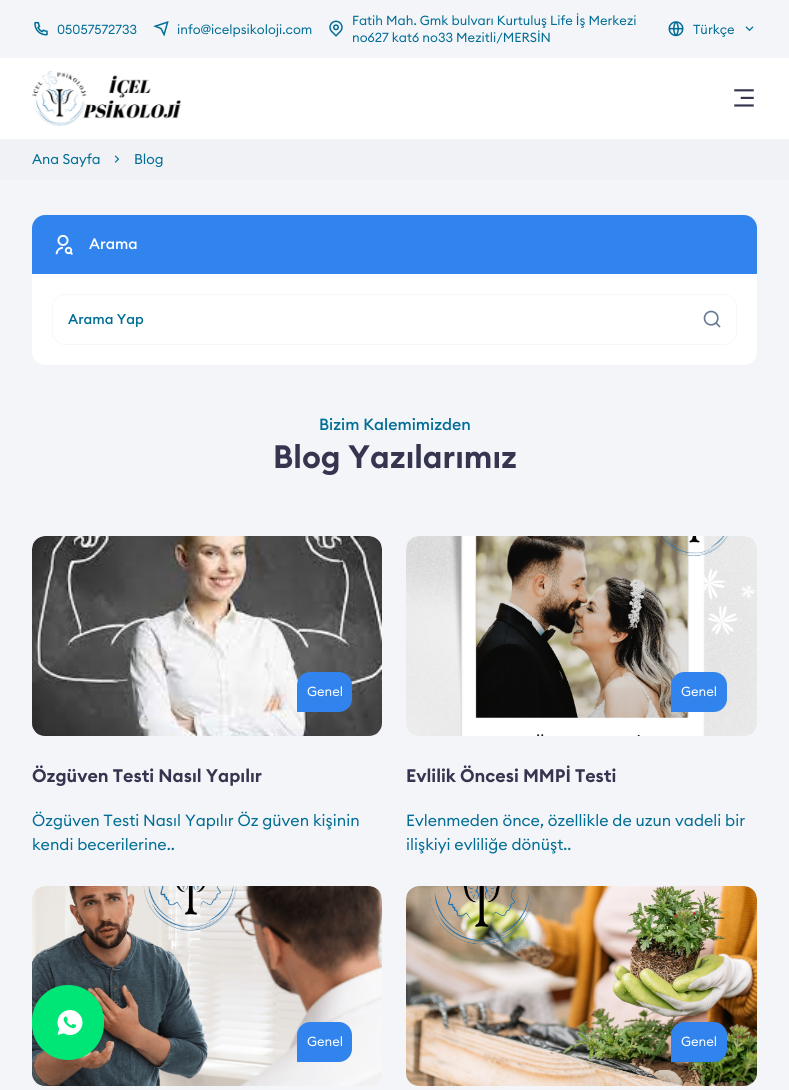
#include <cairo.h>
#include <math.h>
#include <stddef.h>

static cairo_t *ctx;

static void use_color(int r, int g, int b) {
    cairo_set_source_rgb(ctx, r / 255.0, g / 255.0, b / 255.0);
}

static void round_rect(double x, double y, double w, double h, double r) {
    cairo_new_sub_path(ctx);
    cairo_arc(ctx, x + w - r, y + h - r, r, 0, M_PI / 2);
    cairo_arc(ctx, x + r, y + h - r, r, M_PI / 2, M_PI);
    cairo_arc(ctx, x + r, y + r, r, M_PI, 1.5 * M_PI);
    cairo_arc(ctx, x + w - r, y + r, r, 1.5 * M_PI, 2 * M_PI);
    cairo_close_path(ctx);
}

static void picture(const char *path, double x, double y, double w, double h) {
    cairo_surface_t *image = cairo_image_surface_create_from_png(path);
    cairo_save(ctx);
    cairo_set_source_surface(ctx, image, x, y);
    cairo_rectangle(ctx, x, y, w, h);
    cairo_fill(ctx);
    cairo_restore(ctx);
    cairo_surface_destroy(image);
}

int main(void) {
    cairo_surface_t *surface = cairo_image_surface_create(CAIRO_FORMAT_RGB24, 789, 1090);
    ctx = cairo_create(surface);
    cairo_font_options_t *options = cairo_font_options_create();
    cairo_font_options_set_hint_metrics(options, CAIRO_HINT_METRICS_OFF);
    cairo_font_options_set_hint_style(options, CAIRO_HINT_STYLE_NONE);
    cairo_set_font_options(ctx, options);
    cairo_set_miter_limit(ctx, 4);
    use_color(244, 245, 249);
    cairo_paint(ctx);
    picture("img1.png", 34, 21, 14, 15);
    cairo_select_font_face(ctx, "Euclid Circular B", CAIRO_FONT_SLANT_NORMAL, CAIRO_FONT_WEIGHT_NORMAL);
    cairo_set_font_size(ctx, 13);
    use_color(0, 109, 149);
    cairo_move_to(ctx, 57, 34);
    cairo_show_text(ctx, "05057572733");
    picture("img2.png", 153, 21, 16, 16);
    cairo_move_to(ctx, 177, 34);
    cairo_show_text(ctx, "info@icelpsikoloji.com");
    picture("img3.png", 329, 20, 14, 17);
    cairo_move_to(ctx, 352, 25);
    cairo_show_text(ctx, "Fatih Mah. Gmk bulvarı Kurtuluş Life İş Merkezi");
    cairo_move_to(ctx, 352, 42);
    cairo_show_text(ctx, "no627 kat6 no33 Mezitli/MERSİN");
    picture("img4.png", 668, 21, 16, 16);
    cairo_move_to(ctx, 693, 34);
    cairo_show_text(ctx, "Türkçe");
    picture("img5.png", 745, 26, 9, 6);
    use_color(255, 255, 255);
    cairo_rectangle(ctx, 0, 58, 789, 81);
    cairo_fill(ctx);
    picture("img6.png", 32, 71, 149, 55);
    picture("img7.png", 734, 89, 20, 18);
    use_color(240, 242, 246);
    cairo_rectangle(ctx, 0, 139, 789, 41);
    cairo_fill(ctx);
    cairo_set_font_size(ctx, 14);
    use_color(0, 109, 149);
    cairo_move_to(ctx, 32, 164);
    cairo_show_text(ctx, "Ana Sayfa");
    picture("img8.png", 114, 155, 6, 8);
    cairo_move_to(ctx, 134, 164);
    cairo_show_text(ctx, "Blog");
    use_color(49, 132, 238);
    cairo_new_path(ctx);
    cairo_move_to(ctx, 45, 215);
    cairo_line_to(ctx, 744, 215);
    cairo_curve_to(ctx, 751, 215, 757, 221, 757, 228);
    cairo_line_to(ctx, 757, 274);
    cairo_line_to(ctx, 32, 274);
    cairo_line_to(ctx, 32, 228);
    cairo_curve_to(ctx, 32, 221, 38, 215, 45, 215);
    cairo_close_path(ctx);
    cairo_fill(ctx);
    picture("img9.png", 55, 234, 18, 21);
    cairo_select_font_face(ctx, "Euclid Circular B Medium", CAIRO_FONT_SLANT_NORMAL, CAIRO_FONT_WEIGHT_NORMAL);
    cairo_set_font_size(ctx, 15);
    use_color(255, 255, 255);
    cairo_move_to(ctx, 89, 249);
    cairo_show_text(ctx, "Arama");
    cairo_new_path(ctx);
    cairo_move_to(ctx, 32, 274);
    cairo_line_to(ctx, 757, 274);
    cairo_line_to(ctx, 757, 352);
    cairo_curve_to(ctx, 757, 359, 751, 365, 744, 365);
    cairo_line_to(ctx, 45, 365);
    cairo_curve_to(ctx, 38, 365, 32, 359, 32, 352);
    cairo_close_path(ctx);
    cairo_fill(ctx);
    round_rect(52.5, 294.5, 684, 50, 12.5);
    use_color(244, 248, 251);
    cairo_set_line_width(ctx, 1);
    cairo_stroke(ctx);
    cairo_set_font_size(ctx, 14);
    use_color(0, 109, 149);
    cairo_move_to(ctx, 68, 324);
    cairo_show_text(ctx, "Arama Yap");
    picture("img10.png", 703, 310, 18, 18);
    cairo_set_font_size(ctx, 16);
    cairo_move_to(ctx, 319, 430);
    cairo_show_text(ctx, "Bizim Kalemimizden");
    cairo_select_font_face(ctx, "Euclid Circular B SemiBold", CAIRO_FONT_SLANT_NORMAL, CAIRO_FONT_WEIGHT_NORMAL);
    cairo_set_font_size(ctx, 32);
    use_color(53, 53, 80);
    cairo_move_to(ctx, 273, 468);
    cairo_show_text(ctx, "Blog Yazılarımız");
    picture("img11.png", 32, 536, 350, 200);
    use_color(49, 132, 238);
    cairo_new_path(ctx);
    cairo_move_to(ctx, 310, 672);
    cairo_line_to(ctx, 339, 672);
    cairo_curve_to(ctx, 346, 672, 352, 678, 352, 685);
    cairo_line_to(ctx, 352, 699);
    cairo_curve_to(ctx, 352, 706, 346, 712, 339, 712);
    cairo_line_to(ctx, 297, 712);
    cairo_line_to(ctx, 297, 685);
    cairo_curve_to(ctx, 297, 678, 303, 672, 310, 672);
    cairo_close_path(ctx);
    cairo_fill(ctx);
    cairo_select_font_face(ctx, "Euclid Circular B", CAIRO_FONT_SLANT_NORMAL, CAIRO_FONT_WEIGHT_NORMAL);
    cairo_set_font_size(ctx, 13);
    use_color(255, 255, 255);
    cairo_move_to(ctx, 307, 696);
    cairo_show_text(ctx, "Genel");
    cairo_select_font_face(ctx, "Euclid Circular B SemiBold", CAIRO_FONT_SLANT_NORMAL, CAIRO_FONT_WEIGHT_NORMAL);
    cairo_set_font_size(ctx, 18);
    use_color(53, 53, 80);
    cairo_move_to(ctx, 32, 782);
    cairo_show_text(ctx, "Özgüven Testi Nasıl Yapılır");
    cairo_select_font_face(ctx, "Euclid Circular B", CAIRO_FONT_SLANT_NORMAL, CAIRO_FONT_WEIGHT_NORMAL);
    cairo_set_font_size(ctx, 16);
    use_color(0, 109, 149);
    cairo_move_to(ctx, 32, 826);
    cairo_show_text(ctx, "Özgüven Testi Nasıl Yapılır Öz güven kişinin");
    cairo_move_to(ctx, 32, 850);
    cairo_show_text(ctx, "kendi becerilerine..");
    picture("img12.png", 406, 536, 351, 200);
    use_color(49, 132, 238);
    cairo_new_path(ctx);
    cairo_move_to(ctx, 684, 672);
    cairo_line_to(ctx, 714, 672);
    cairo_curve_to(ctx, 721, 672, 727, 678, 727, 685);
    cairo_line_to(ctx, 727, 699);
    cairo_curve_to(ctx, 727, 706, 721, 712, 714, 712);
    cairo_line_to(ctx, 671, 712);
    cairo_line_to(ctx, 671, 685);
    cairo_curve_to(ctx, 671, 678, 677, 672, 684, 672);
    cairo_close_path(ctx);
    cairo_fill(ctx);
    cairo_set_font_size(ctx, 13);
    use_color(255, 255, 255);
    cairo_move_to(ctx, 681, 696);
    cairo_show_text(ctx, "Genel");
    cairo_select_font_face(ctx, "Euclid Circular B SemiBold", CAIRO_FONT_SLANT_NORMAL, CAIRO_FONT_WEIGHT_NORMAL);
    cairo_set_font_size(ctx, 18);
    use_color(53, 53, 80);
    cairo_move_to(ctx, 406, 782);
    cairo_show_text(ctx, "Evlilik Öncesi MMPİ Testi");
    cairo_select_font_face(ctx, "Euclid Circular B", CAIRO_FONT_SLANT_NORMAL, CAIRO_FONT_WEIGHT_NORMAL);
    cairo_set_font_size(ctx, 16);
    use_color(0, 109, 149);
    cairo_move_to(ctx, 406, 826);
    cairo_show_text(ctx, "Evlenmeden önce, özellikle de uzun vadeli bir");
    cairo_move_to(ctx, 406, 850);
    cairo_show_text(ctx, "ilişkiyi evliliğe dönüşt..");
    picture("img13.png", 32, 886, 350, 200);
    use_color(49, 132, 238);
    cairo_new_path(ctx);
    cairo_move_to(ctx, 310, 1022);
    cairo_line_to(ctx, 339, 1022);
    cairo_curve_to(ctx, 346, 1022, 352, 1028, 352, 1035);
    cairo_line_to(ctx, 352, 1049);
    cairo_curve_to(ctx, 352, 1056, 346, 1062, 339, 1062);
    cairo_line_to(ctx, 297, 1062);
    cairo_line_to(ctx, 297, 1035);
    cairo_curve_to(ctx, 297, 1028, 303, 1022, 310, 1022);
    cairo_close_path(ctx);
    cairo_fill(ctx);
    cairo_set_font_size(ctx, 13);
    use_color(255, 255, 255);
    cairo_move_to(ctx, 307, 1046);
    cairo_show_text(ctx, "Genel");
    picture("img14.png", 406, 886, 351, 200);
    use_color(49, 132, 238);
    cairo_new_path(ctx);
    cairo_move_to(ctx, 684, 1022);
    cairo_line_to(ctx, 714, 1022);
    cairo_curve_to(ctx, 721, 1022, 727, 1028, 727, 1035);
    cairo_line_to(ctx, 727, 1049);
    cairo_curve_to(ctx, 727, 1056, 721, 1062, 714, 1062);
    cairo_line_to(ctx, 671, 1062);
    cairo_line_to(ctx, 671, 1035);
    cairo_curve_to(ctx, 671, 1028, 677, 1022, 684, 1022);
    cairo_close_path(ctx);
    cairo_fill(ctx);
    use_color(255, 255, 255);
    cairo_move_to(ctx, 681, 1046);
    cairo_show_text(ctx, "Genel");
    use_color(0, 230, 118);
    round_rect(32, 985, 72, 75, 36);
    cairo_fill(ctx);
    picture("img15.png", 57, 1010, 26, 25);
    cairo_surface_write_to_png(surface, "result.png");
    cairo_font_options_destroy(options);
    cairo_destroy(ctx);
    cairo_surface_destroy(surface);
    return 0;
}
